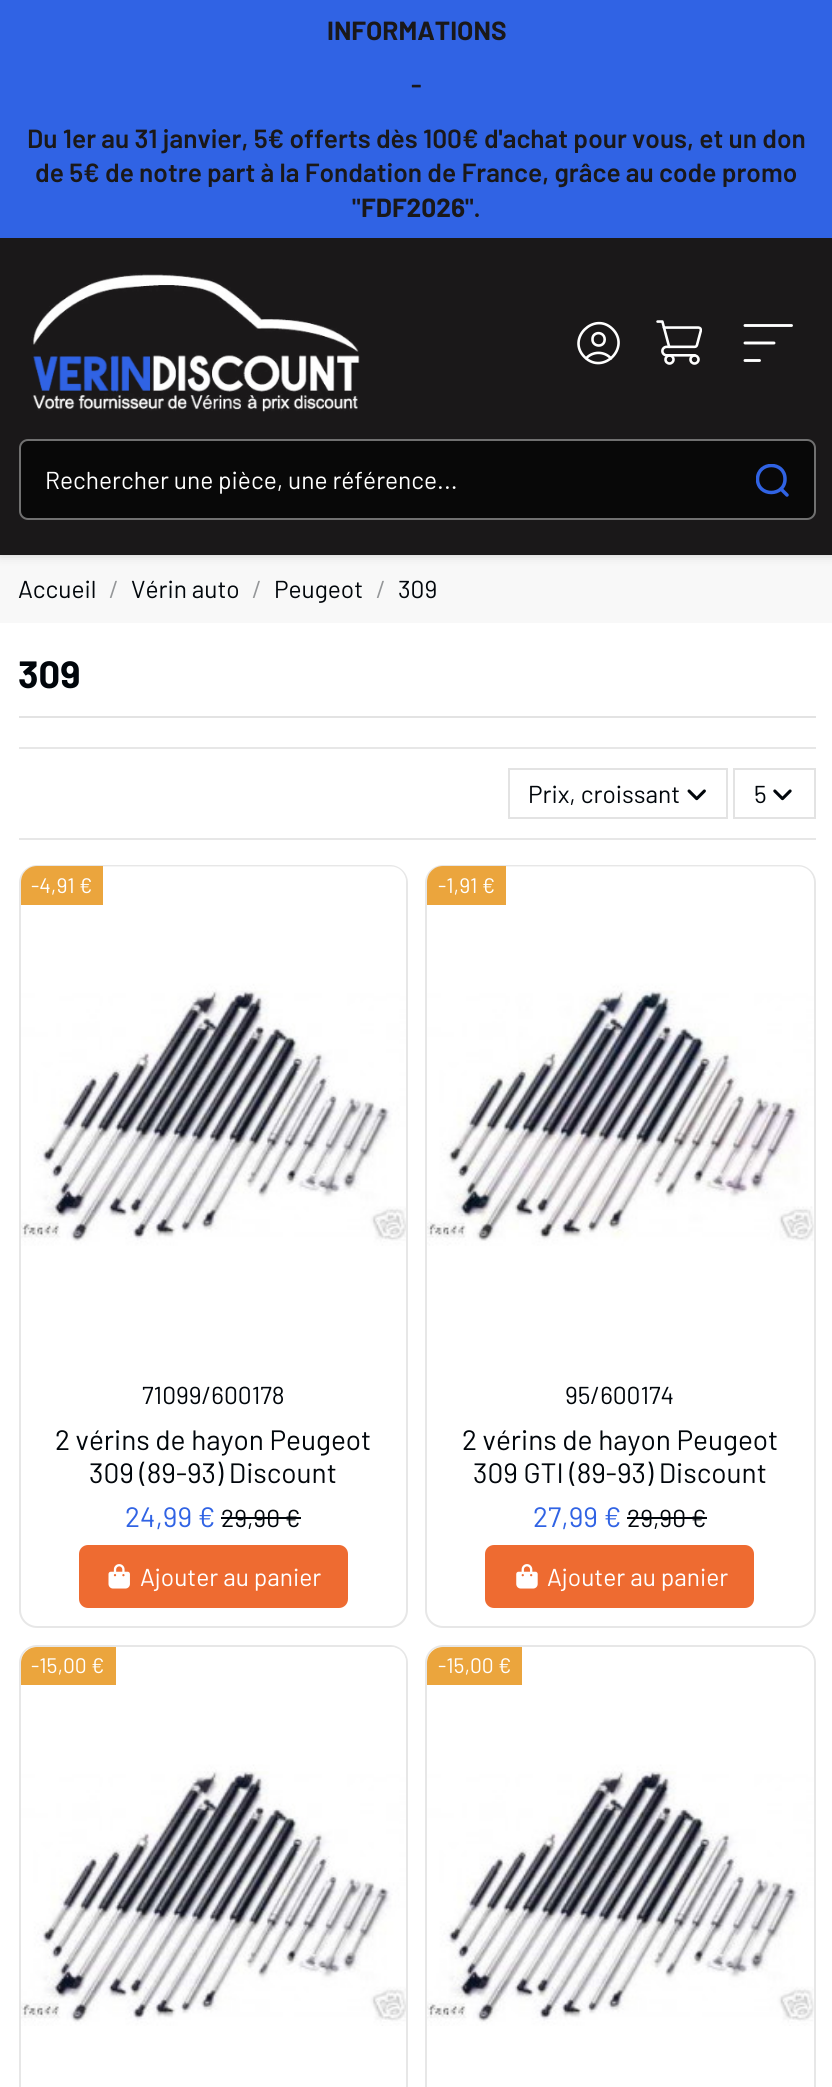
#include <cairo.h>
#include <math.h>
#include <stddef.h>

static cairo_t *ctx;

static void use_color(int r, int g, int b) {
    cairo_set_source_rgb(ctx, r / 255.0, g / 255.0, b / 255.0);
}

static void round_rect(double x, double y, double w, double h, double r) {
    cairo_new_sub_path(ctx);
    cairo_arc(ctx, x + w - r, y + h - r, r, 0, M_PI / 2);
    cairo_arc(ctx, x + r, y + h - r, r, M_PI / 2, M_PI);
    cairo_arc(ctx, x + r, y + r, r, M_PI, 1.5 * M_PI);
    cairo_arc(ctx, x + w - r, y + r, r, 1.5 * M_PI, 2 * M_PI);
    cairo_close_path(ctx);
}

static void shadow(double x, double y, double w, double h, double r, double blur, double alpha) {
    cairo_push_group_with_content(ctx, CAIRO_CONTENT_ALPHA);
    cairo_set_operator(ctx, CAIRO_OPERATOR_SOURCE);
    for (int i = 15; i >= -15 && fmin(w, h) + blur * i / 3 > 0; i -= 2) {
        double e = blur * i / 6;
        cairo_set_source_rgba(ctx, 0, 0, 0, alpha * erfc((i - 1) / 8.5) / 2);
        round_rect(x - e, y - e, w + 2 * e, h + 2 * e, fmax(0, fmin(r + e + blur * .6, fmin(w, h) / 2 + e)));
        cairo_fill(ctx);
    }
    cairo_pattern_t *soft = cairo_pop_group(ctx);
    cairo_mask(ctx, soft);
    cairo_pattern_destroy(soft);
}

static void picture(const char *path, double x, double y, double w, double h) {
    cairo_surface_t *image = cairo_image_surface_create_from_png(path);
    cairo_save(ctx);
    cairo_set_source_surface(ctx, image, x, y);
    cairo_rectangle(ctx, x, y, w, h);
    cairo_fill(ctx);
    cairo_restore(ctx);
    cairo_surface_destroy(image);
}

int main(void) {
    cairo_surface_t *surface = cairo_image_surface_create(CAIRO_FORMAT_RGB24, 832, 2087);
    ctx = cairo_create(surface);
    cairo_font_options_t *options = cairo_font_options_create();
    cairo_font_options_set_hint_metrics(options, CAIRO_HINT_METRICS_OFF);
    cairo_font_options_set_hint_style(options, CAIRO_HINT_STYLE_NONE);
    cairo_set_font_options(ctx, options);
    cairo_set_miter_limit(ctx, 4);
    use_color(255, 255, 255);
    cairo_paint(ctx);
    use_color(248, 248, 248);
    cairo_rectangle(ctx, 0, 555, 832, 68);
    cairo_fill(ctx);
    use_color(0, 0, 0);
    shadow(0, -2, 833, 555, 0, 6, 0.25);
    use_color(26, 24, 25);
    cairo_rectangle(ctx, 0, 238, 832, 317);
    cairo_fill(ctx);
    use_color(48, 99, 228);
    cairo_rectangle(ctx, 0, 0, 832, 238);
    cairo_fill(ctx);
    cairo_select_font_face(ctx, "Barlow", CAIRO_FONT_SLANT_NORMAL, CAIRO_FONT_WEIGHT_BOLD);
    cairo_set_font_size(ctx, 26.25);
    use_color(26, 24, 25);
    cairo_move_to(ctx, 327, 40);
    cairo_show_text(ctx, "INFORMATIONS");
    cairo_select_font_face(ctx, "Barlow SemiBold", CAIRO_FONT_SLANT_NORMAL, CAIRO_FONT_WEIGHT_NORMAL);
    cairo_move_to(ctx, 411, 94);
    cairo_show_text(ctx, "-");
    cairo_move_to(ctx, 27, 148);
    cairo_show_text(ctx, "Du 1er au 31 janvier, 5€ offerts dès 100€ d'achat pour vous, et un don");
    cairo_move_to(ctx, 35, 182);
    cairo_show_text(ctx, "de 5€ de notre part à la Fondation de France, grâce au code promo");
    cairo_move_to(ctx, 352, 217);
    cairo_show_text(ctx, "\"");
    cairo_select_font_face(ctx, "Barlow", CAIRO_FONT_SLANT_NORMAL, CAIRO_FONT_WEIGHT_BOLD);
    cairo_move_to(ctx, 361, 217);
    cairo_show_text(ctx, "FDF2026");
    cairo_select_font_face(ctx, "Barlow SemiBold", CAIRO_FONT_SLANT_NORMAL, CAIRO_FONT_WEIGHT_NORMAL);
    cairo_move_to(ctx, 465, 217);
    cairo_show_text(ctx, "\".");
    picture("img1.png", 31, 273, 329, 139);
    cairo_new_path(ctx);
    cairo_move_to(ctx, 612.5, 329);
    cairo_curve_to(ctx, 631, 347.5, 603, 375.5, 584.5, 357);
    cairo_curve_to(ctx, 566, 338.5, 594.5, 311, 612.5, 329);
    cairo_move_to(ctx, 603, 335);
    cairo_curve_to(ctx, 604.5, 336.5, 605, 339, 604.5, 341);
    cairo_curve_to(ctx, 603, 348, 592, 346.5, 592.5, 339);
    cairo_curve_to(ctx, 592.5, 337.5, 593, 336, 594, 335);
    cairo_curve_to(ctx, 596.5, 332.5, 600.5, 332.5, 603, 335);
    cairo_move_to(ctx, 611, 358.5);
    cairo_curve_to(ctx, 604.5, 351, 592.5, 351, 586, 358.5);
    use_color(255, 255, 255);
    cairo_set_line_width(ctx, 2.6);
    cairo_set_line_cap(ctx, CAIRO_LINE_CAP_ROUND);
    cairo_set_line_join(ctx, CAIRO_LINE_JOIN_ROUND);
    cairo_stroke(ctx);
    picture("img2.png", 656, 320, 46, 45);
    cairo_new_path(ctx);
    cairo_move_to(ctx, 745, 325.5);
    cairo_line_to(ctx, 791.5, 325.5);
    cairo_move_to(ctx, 745, 343);
    cairo_line_to(ctx, 774, 343);
    cairo_move_to(ctx, 745, 360.5);
    cairo_line_to(ctx, 759.5, 360.5);
    cairo_set_line_width(ctx, 2.9);
    cairo_stroke(ctx);
    use_color(8, 8, 8);
    round_rect(20, 440, 795, 79, 8);
    cairo_fill_preserve(ctx);
    use_color(112, 112, 112);
    cairo_set_line_width(ctx, 2);
    cairo_set_line_cap(ctx, CAIRO_LINE_CAP_BUTT);
    cairo_set_line_join(ctx, CAIRO_LINE_JOIN_MITER);
    cairo_stroke(ctx);
    cairo_select_font_face(ctx, "Barlow", CAIRO_FONT_SLANT_NORMAL, CAIRO_FONT_WEIGHT_NORMAL);
    cairo_set_font_size(ctx, 24.5);
    use_color(255, 255, 255);
    cairo_move_to(ctx, 45, 489);
    cairo_show_text(ctx, "Rechercher une pièce, une référence...");
    cairo_new_path(ctx);
    cairo_move_to(ctx, 787, 495);
    cairo_line_to(ctx, 781, 489);
    use_color(48, 99, 228);
    cairo_set_line_width(ctx, 3.5);
    cairo_set_line_cap(ctx, CAIRO_LINE_CAP_ROUND);
    cairo_set_line_join(ctx, CAIRO_LINE_JOIN_ROUND);
    cairo_stroke(ctx);
    cairo_save(ctx);
    cairo_rectangle(ctx, 756, 464, 35, 33);
    cairo_clip(ctx);
    cairo_new_path(ctx);
    cairo_move_to(ctx, 757.5, 479);
    cairo_curve_to(ctx, 757.5, 497, 785, 497, 785, 479);
    cairo_curve_to(ctx, 785, 461, 758, 461, 757.5, 479);
    cairo_stroke(ctx);
    cairo_restore(ctx);
    use_color(1, 6, 11);
    cairo_move_to(ctx, 18, 598);
    cairo_show_text(ctx, "Accueil");
    use_color(149, 151, 153);
    cairo_move_to(ctx, 109, 598);
    cairo_show_text(ctx, "/");
    use_color(1, 6, 11);
    cairo_move_to(ctx, 131, 598);
    cairo_show_text(ctx, "Vérin auto");
    use_color(149, 151, 153);
    cairo_move_to(ctx, 252, 598);
    cairo_show_text(ctx, "/");
    use_color(1, 6, 11);
    cairo_move_to(ctx, 274, 598);
    cairo_show_text(ctx, "Peugeot");
    use_color(149, 151, 153);
    cairo_move_to(ctx, 376, 598);
    cairo_show_text(ctx, "/");
    use_color(1, 6, 11);
    cairo_move_to(ctx, 398, 598);
    cairo_show_text(ctx, "309");
    use_color(227, 227, 227);
    cairo_rectangle(ctx, 19, 716, 797, 2);
    cairo_fill(ctx);
    cairo_select_font_face(ctx, "Barlow", CAIRO_FONT_SLANT_NORMAL, CAIRO_FONT_WEIGHT_BOLD);
    cairo_set_font_size(ctx, 38);
    use_color(1, 6, 11);
    cairo_move_to(ctx, 18, 688);
    cairo_show_text(ctx, "309");
    use_color(231, 231, 231);
    cairo_rectangle(ctx, 19, 747, 797, 2);
    cairo_fill(ctx);
    cairo_rectangle(ctx, 19, 838, 797, 2);
    cairo_fill(ctx);
    cairo_rectangle(ctx, 509, 769, 218, 49);
    use_color(227, 227, 227);
    cairo_set_line_width(ctx, 2);
    cairo_set_line_cap(ctx, CAIRO_LINE_CAP_BUTT);
    cairo_set_line_join(ctx, CAIRO_LINE_JOIN_MITER);
    cairo_stroke(ctx);
    cairo_select_font_face(ctx, "Barlow", CAIRO_FONT_SLANT_NORMAL, CAIRO_FONT_WEIGHT_NORMAL);
    cairo_set_font_size(ctx, 24.5);
    use_color(1, 6, 11);
    cairo_move_to(ctx, 528, 803);
    cairo_show_text(ctx, "Prix, croissant");
    picture("img3.png", 687, 789, 19, 12);
    cairo_rectangle(ctx, 734, 769, 81, 49);
    use_color(227, 227, 227);
    cairo_stroke(ctx);
    use_color(1, 6, 11);
    cairo_move_to(ctx, 754, 803);
    cairo_show_text(ctx, "5");
    picture("img4.png", 773, 789, 19, 12);
    round_rect(20, 866, 387, 761, 17);
    use_color(231, 231, 231);
    cairo_stroke(ctx);
    picture("img5.png", 21, 866, 385, 380);
    use_color(235, 165, 61);
    cairo_new_path(ctx);
    cairo_move_to(ctx, 37, 866);
    cairo_line_to(ctx, 103, 866);
    cairo_line_to(ctx, 103, 905);
    cairo_line_to(ctx, 21, 905);
    cairo_line_to(ctx, 21, 882);
    cairo_curve_to(ctx, 21, 873, 28, 866, 37, 866);
    cairo_close_path(ctx);
    cairo_fill(ctx);
    cairo_set_font_size(ctx, 21);
    use_color(255, 255, 255);
    cairo_move_to(ctx, 31, 893);
    cairo_show_text(ctx, "-4,91 €");
    cairo_set_font_size(ctx, 24.5);
    use_color(1, 6, 11);
    cairo_move_to(ctx, 142, 1404);
    cairo_show_text(ctx, "71099/600178");
    cairo_set_font_size(ctx, 28);
    cairo_move_to(ctx, 55, 1450);
    cairo_show_text(ctx, "2 vérins de hayon Peugeot");
    cairo_move_to(ctx, 89, 1483);
    cairo_show_text(ctx, "309 (89-93) Discount");
    use_color(48, 99, 228);
    cairo_move_to(ctx, 125, 1527);
    cairo_show_text(ctx, "24,99 €");
    cairo_set_font_size(ctx, 24.5);
    use_color(1, 6, 11);
    cairo_move_to(ctx, 221, 1527);
    cairo_show_text(ctx, "29,90 €");
    cairo_rectangle(ctx, 221, 1517, 80, 2);
    cairo_fill(ctx);
    use_color(238, 107, 49);
    round_rect(79, 1545, 269, 63, 9);
    cairo_fill(ctx);
    picture("img6.png", 108, 1564, 22, 25);
    use_color(255, 255, 255);
    cairo_move_to(ctx, 140, 1586);
    cairo_show_text(ctx, "Ajouter au panier");
    round_rect(426, 866, 389, 761, 17);
    use_color(231, 231, 231);
    cairo_stroke(ctx);
    picture("img7.png", 427, 866, 387, 380);
    use_color(235, 165, 61);
    cairo_new_path(ctx);
    cairo_move_to(ctx, 443, 866);
    cairo_line_to(ctx, 506, 866);
    cairo_line_to(ctx, 506, 905);
    cairo_line_to(ctx, 427, 905);
    cairo_line_to(ctx, 427, 882);
    cairo_curve_to(ctx, 427, 873, 434, 866, 443, 866);
    cairo_close_path(ctx);
    cairo_fill(ctx);
    cairo_set_font_size(ctx, 21);
    use_color(255, 255, 255);
    cairo_move_to(ctx, 438, 893);
    cairo_show_text(ctx, "-1,91 €");
    cairo_set_font_size(ctx, 24.5);
    use_color(1, 6, 11);
    cairo_move_to(ctx, 565, 1404);
    cairo_show_text(ctx, "95/600174");
    cairo_set_font_size(ctx, 28);
    cairo_move_to(ctx, 462, 1450);
    cairo_show_text(ctx, "2 vérins de hayon Peugeot");
    cairo_move_to(ctx, 473, 1483);
    cairo_show_text(ctx, "309 GTI (89-93) Discount");
    use_color(48, 99, 228);
    cairo_move_to(ctx, 533, 1527);
    cairo_show_text(ctx, "27,99 €");
    cairo_set_font_size(ctx, 24.5);
    use_color(1, 6, 11);
    cairo_move_to(ctx, 627, 1527);
    cairo_show_text(ctx, "29,90 €");
    cairo_rectangle(ctx, 627, 1517, 80, 2);
    cairo_fill(ctx);
    use_color(238, 107, 49);
    round_rect(485, 1545, 269, 63, 9);
    cairo_fill(ctx);
    picture("img8.png", 516, 1564, 22, 25);
    use_color(255, 255, 255);
    cairo_move_to(ctx, 547, 1586);
    cairo_show_text(ctx, "Ajouter au panier");
    round_rect(20, 1646, 387, 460, 17);
    use_color(231, 231, 231);
    cairo_stroke(ctx);
    picture("img9.png", 21, 1647, 385, 379);
    use_color(235, 165, 61);
    cairo_new_path(ctx);
    cairo_move_to(ctx, 37, 1647);
    cairo_line_to(ctx, 116, 1647);
    cairo_line_to(ctx, 116, 1685);
    cairo_line_to(ctx, 21, 1685);
    cairo_line_to(ctx, 21, 1663);
    cairo_curve_to(ctx, 21, 1654, 28, 1647, 37, 1647);
    cairo_close_path(ctx);
    cairo_fill(ctx);
    cairo_set_font_size(ctx, 21);
    use_color(255, 255, 255);
    cairo_move_to(ctx, 31, 1673);
    cairo_show_text(ctx, "-15,00 €");
    round_rect(426, 1646, 389, 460, 17);
    use_color(231, 231, 231);
    cairo_stroke(ctx);
    picture("img10.png", 427, 1647, 387, 379);
    use_color(235, 165, 61);
    cairo_new_path(ctx);
    cairo_move_to(ctx, 443, 1647);
    cairo_line_to(ctx, 522, 1647);
    cairo_line_to(ctx, 522, 1685);
    cairo_line_to(ctx, 427, 1685);
    cairo_line_to(ctx, 427, 1663);
    cairo_curve_to(ctx, 427, 1654, 434, 1647, 443, 1647);
    cairo_close_path(ctx);
    cairo_fill(ctx);
    use_color(255, 255, 255);
    cairo_move_to(ctx, 438, 1673);
    cairo_show_text(ctx, "-15,00 €");
    cairo_surface_write_to_png(surface, "result.png");
    cairo_font_options_destroy(options);
    cairo_destroy(ctx);
    cairo_surface_destroy(surface);
    return 0;
}
